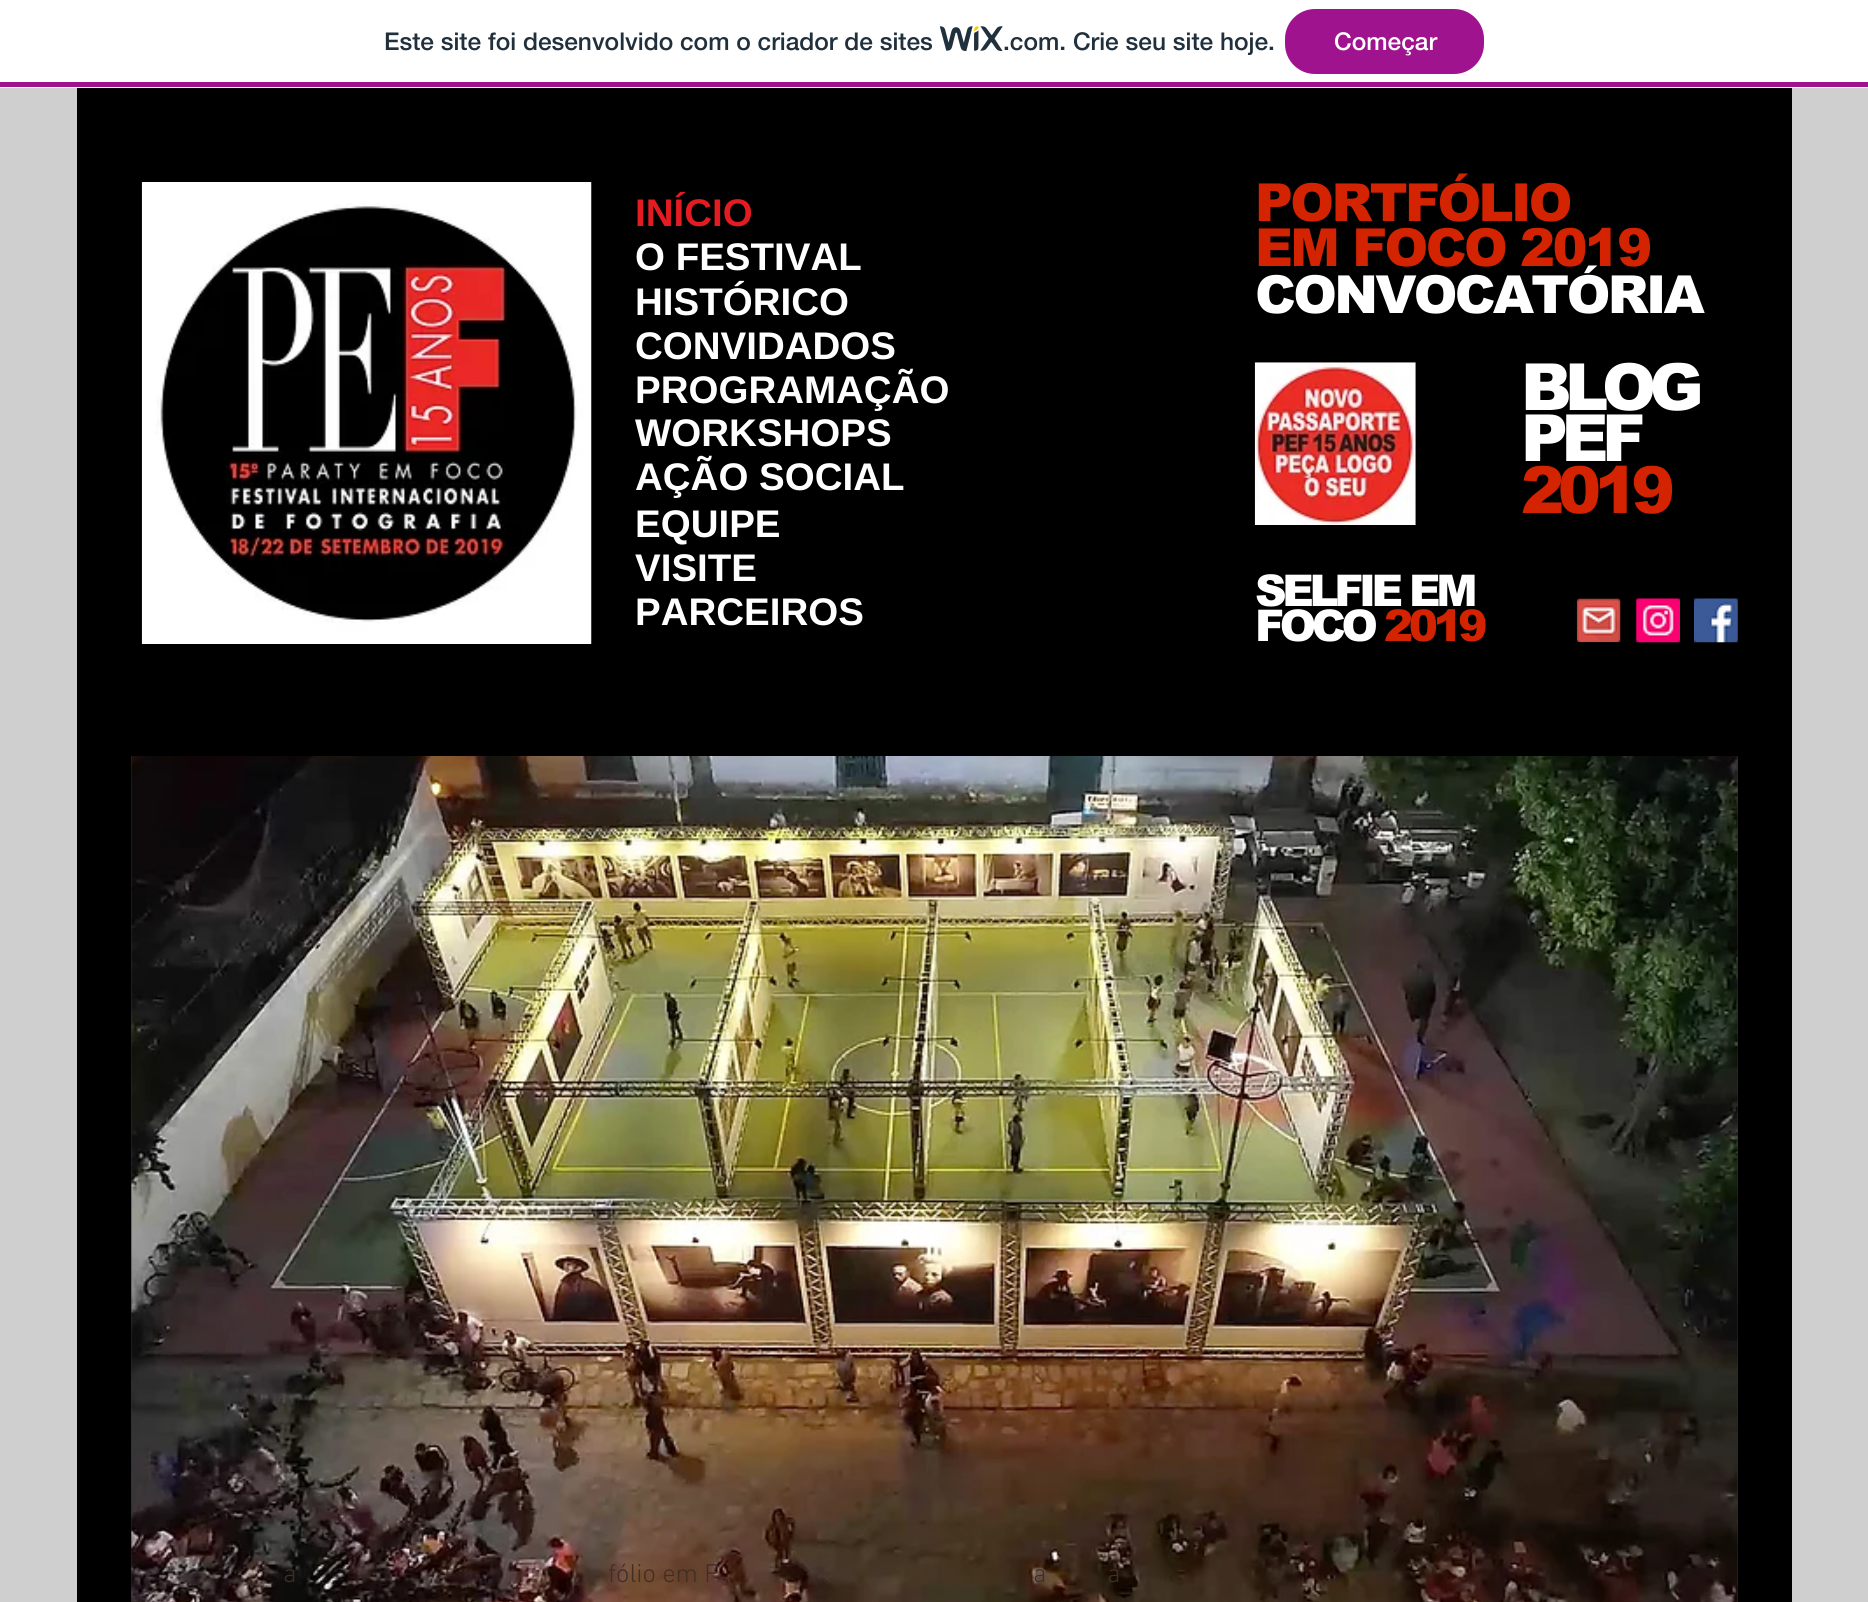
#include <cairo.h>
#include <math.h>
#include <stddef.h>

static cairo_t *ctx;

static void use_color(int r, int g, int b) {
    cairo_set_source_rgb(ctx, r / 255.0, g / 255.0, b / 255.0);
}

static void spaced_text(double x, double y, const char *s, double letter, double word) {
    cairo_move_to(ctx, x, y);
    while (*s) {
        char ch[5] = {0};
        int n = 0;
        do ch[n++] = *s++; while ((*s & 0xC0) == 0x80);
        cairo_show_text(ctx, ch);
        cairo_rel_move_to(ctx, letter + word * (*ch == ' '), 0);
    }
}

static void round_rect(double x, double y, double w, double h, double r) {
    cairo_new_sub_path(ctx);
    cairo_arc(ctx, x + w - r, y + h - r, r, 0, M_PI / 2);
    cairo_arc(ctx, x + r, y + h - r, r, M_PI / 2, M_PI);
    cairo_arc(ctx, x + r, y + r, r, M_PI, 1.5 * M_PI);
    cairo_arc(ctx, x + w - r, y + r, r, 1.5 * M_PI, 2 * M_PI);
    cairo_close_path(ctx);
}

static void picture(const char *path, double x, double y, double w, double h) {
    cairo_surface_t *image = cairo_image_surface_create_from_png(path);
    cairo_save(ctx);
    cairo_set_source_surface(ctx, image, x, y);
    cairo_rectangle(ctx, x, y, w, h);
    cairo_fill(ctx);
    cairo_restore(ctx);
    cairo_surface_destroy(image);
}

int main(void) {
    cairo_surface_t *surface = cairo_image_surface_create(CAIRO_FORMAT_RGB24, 1868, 1602);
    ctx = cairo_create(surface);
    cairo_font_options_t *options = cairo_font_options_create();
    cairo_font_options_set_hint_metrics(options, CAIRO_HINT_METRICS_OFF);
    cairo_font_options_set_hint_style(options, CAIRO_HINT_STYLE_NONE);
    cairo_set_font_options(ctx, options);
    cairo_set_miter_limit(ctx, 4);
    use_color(255, 255, 255);
    cairo_paint(ctx);
    use_color(160, 19, 142);
    cairo_rectangle(ctx, 0, 82, 1868, 5);
    cairo_fill(ctx);
    cairo_select_font_face(ctx, "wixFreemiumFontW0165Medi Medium", CAIRO_FONT_SLANT_NORMAL, CAIRO_FONT_WEIGHT_NORMAL);
    cairo_set_font_size(ctx, 24.5);
    use_color(32, 48, 60);
    cairo_move_to(ctx, 384, 50);
    cairo_show_text(ctx, "Este site foi desenvolvido com o criador de sites");
    picture("img1.png", 940, 26, 63, 26);
    cairo_move_to(ctx, 1003, 50);
    cairo_show_text(ctx, ".com. Crie seu site hoje.");
    use_color(160, 19, 142);
    round_rect(1286, 10, 197, 63, 29);
    cairo_fill_preserve(ctx);
    cairo_stroke(ctx);
    use_color(255, 255, 255);
    cairo_move_to(ctx, 1334, 50);
    cairo_show_text(ctx, "Começar");
    use_color(207, 207, 207);
    cairo_rectangle(ctx, 0, 88, 1868, 1514);
    cairo_fill(ctx);
    use_color(0, 0, 0);
    cairo_rectangle(ctx, 77, 88, 1715, 1514);
    cairo_fill(ctx);
    picture("img2.png", 141, 182, 451, 462);
    cairo_select_font_face(ctx, "Liberation Sans", CAIRO_FONT_SLANT_NORMAL, CAIRO_FONT_WEIGHT_BOLD);
    cairo_set_font_size(ctx, 38.5);
    use_color(226, 28, 33);
    cairo_move_to(ctx, 635, 226);
    cairo_show_text(ctx, "INÍCIO");
    use_color(255, 255, 255);
    cairo_move_to(ctx, 635, 270);
    cairo_show_text(ctx, "O FESTIVAL");
    cairo_move_to(ctx, 635, 315);
    cairo_show_text(ctx, "HISTÓRICO");
    cairo_move_to(ctx, 635, 359);
    cairo_show_text(ctx, "CONVIDADOS");
    cairo_move_to(ctx, 635, 403);
    cairo_show_text(ctx, "PROGRAMAÇÃO");
    cairo_move_to(ctx, 635, 446);
    cairo_show_text(ctx, "WORKSHOPS");
    cairo_move_to(ctx, 635, 490);
    cairo_show_text(ctx, "AÇÃO SOCIAL");
    cairo_move_to(ctx, 635, 537);
    cairo_show_text(ctx, "EQUIPE");
    cairo_move_to(ctx, 635, 581);
    cairo_show_text(ctx, "VISITE");
    cairo_move_to(ctx, 635, 625);
    cairo_show_text(ctx, "PARCEIROS");
    cairo_select_font_face(ctx, "arial Black", CAIRO_FONT_SLANT_NORMAL, CAIRO_FONT_WEIGHT_NORMAL);
    cairo_set_font_size(ctx, 52.5);
    use_color(211, 35, 0);
    spaced_text(1255, 221, "PORTFÓLIO", -2.6, 0);
    spaced_text(1255, 266, "EM FOCO 2019", -2.6, 0);
    use_color(255, 255, 255);
    spaced_text(1255, 313, "CONVOCATÓRIA", -2.6, 0);
    use_color(47, 46, 46);
    cairo_rectangle(ctx, 131, 756, 1607, 846);
    cairo_fill(ctx);
    picture("img3.png", 131, 756, 1607, 846);
    cairo_select_font_face(ctx, "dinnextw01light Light", CAIRO_FONT_SLANT_NORMAL, CAIRO_FONT_WEIGHT_NORMAL);
    cairo_set_font_size(ctx, 26.25);
    use_color(64, 46, 36);
    cairo_move_to(ctx, 283, 1582);
    cairo_show_text(ctx, "a");
    cairo_move_to(ctx, 608, 1582);
    cairo_show_text(ctx, "fólio em F");
    cairo_move_to(ctx, 1033, 1582);
    cairo_show_text(ctx, "a");
    cairo_move_to(ctx, 1107, 1582);
    cairo_show_text(ctx, "a");
    picture("img4.png", 1254, 362, 162, 163);
    cairo_select_font_face(ctx, "arial Black", CAIRO_FONT_SLANT_NORMAL, CAIRO_FONT_WEIGHT_NORMAL);
    cairo_set_font_size(ctx, 65);
    use_color(255, 255, 255);
    spaced_text(1521, 410, "BLOG", -6.5, 0);
    spaced_text(1521, 461, "PEF", -6.5, 0);
    use_color(211, 35, 0);
    spaced_text(1521, 513, "2019", -6.5, 0);
    cairo_set_font_size(ctx, 43.75);
    use_color(255, 255, 255);
    spaced_text(1255, 606, "SELFIE EM", -4.4, 0);
    spaced_text(1255, 641, "FOCO", -4.4, 0);
    use_color(211, 35, 0);
    spaced_text(1384, 641, "2019", -4.4, 0);
    picture("img5.png", 1576, 598, 45, 45);
    picture("img6.png", 1636, 598, 44, 45);
    picture("img7.png", 1694, 598, 44, 45);
    cairo_surface_write_to_png(surface, "result.png");
    cairo_font_options_destroy(options);
    cairo_destroy(ctx);
    cairo_surface_destroy(surface);
    return 0;
}
